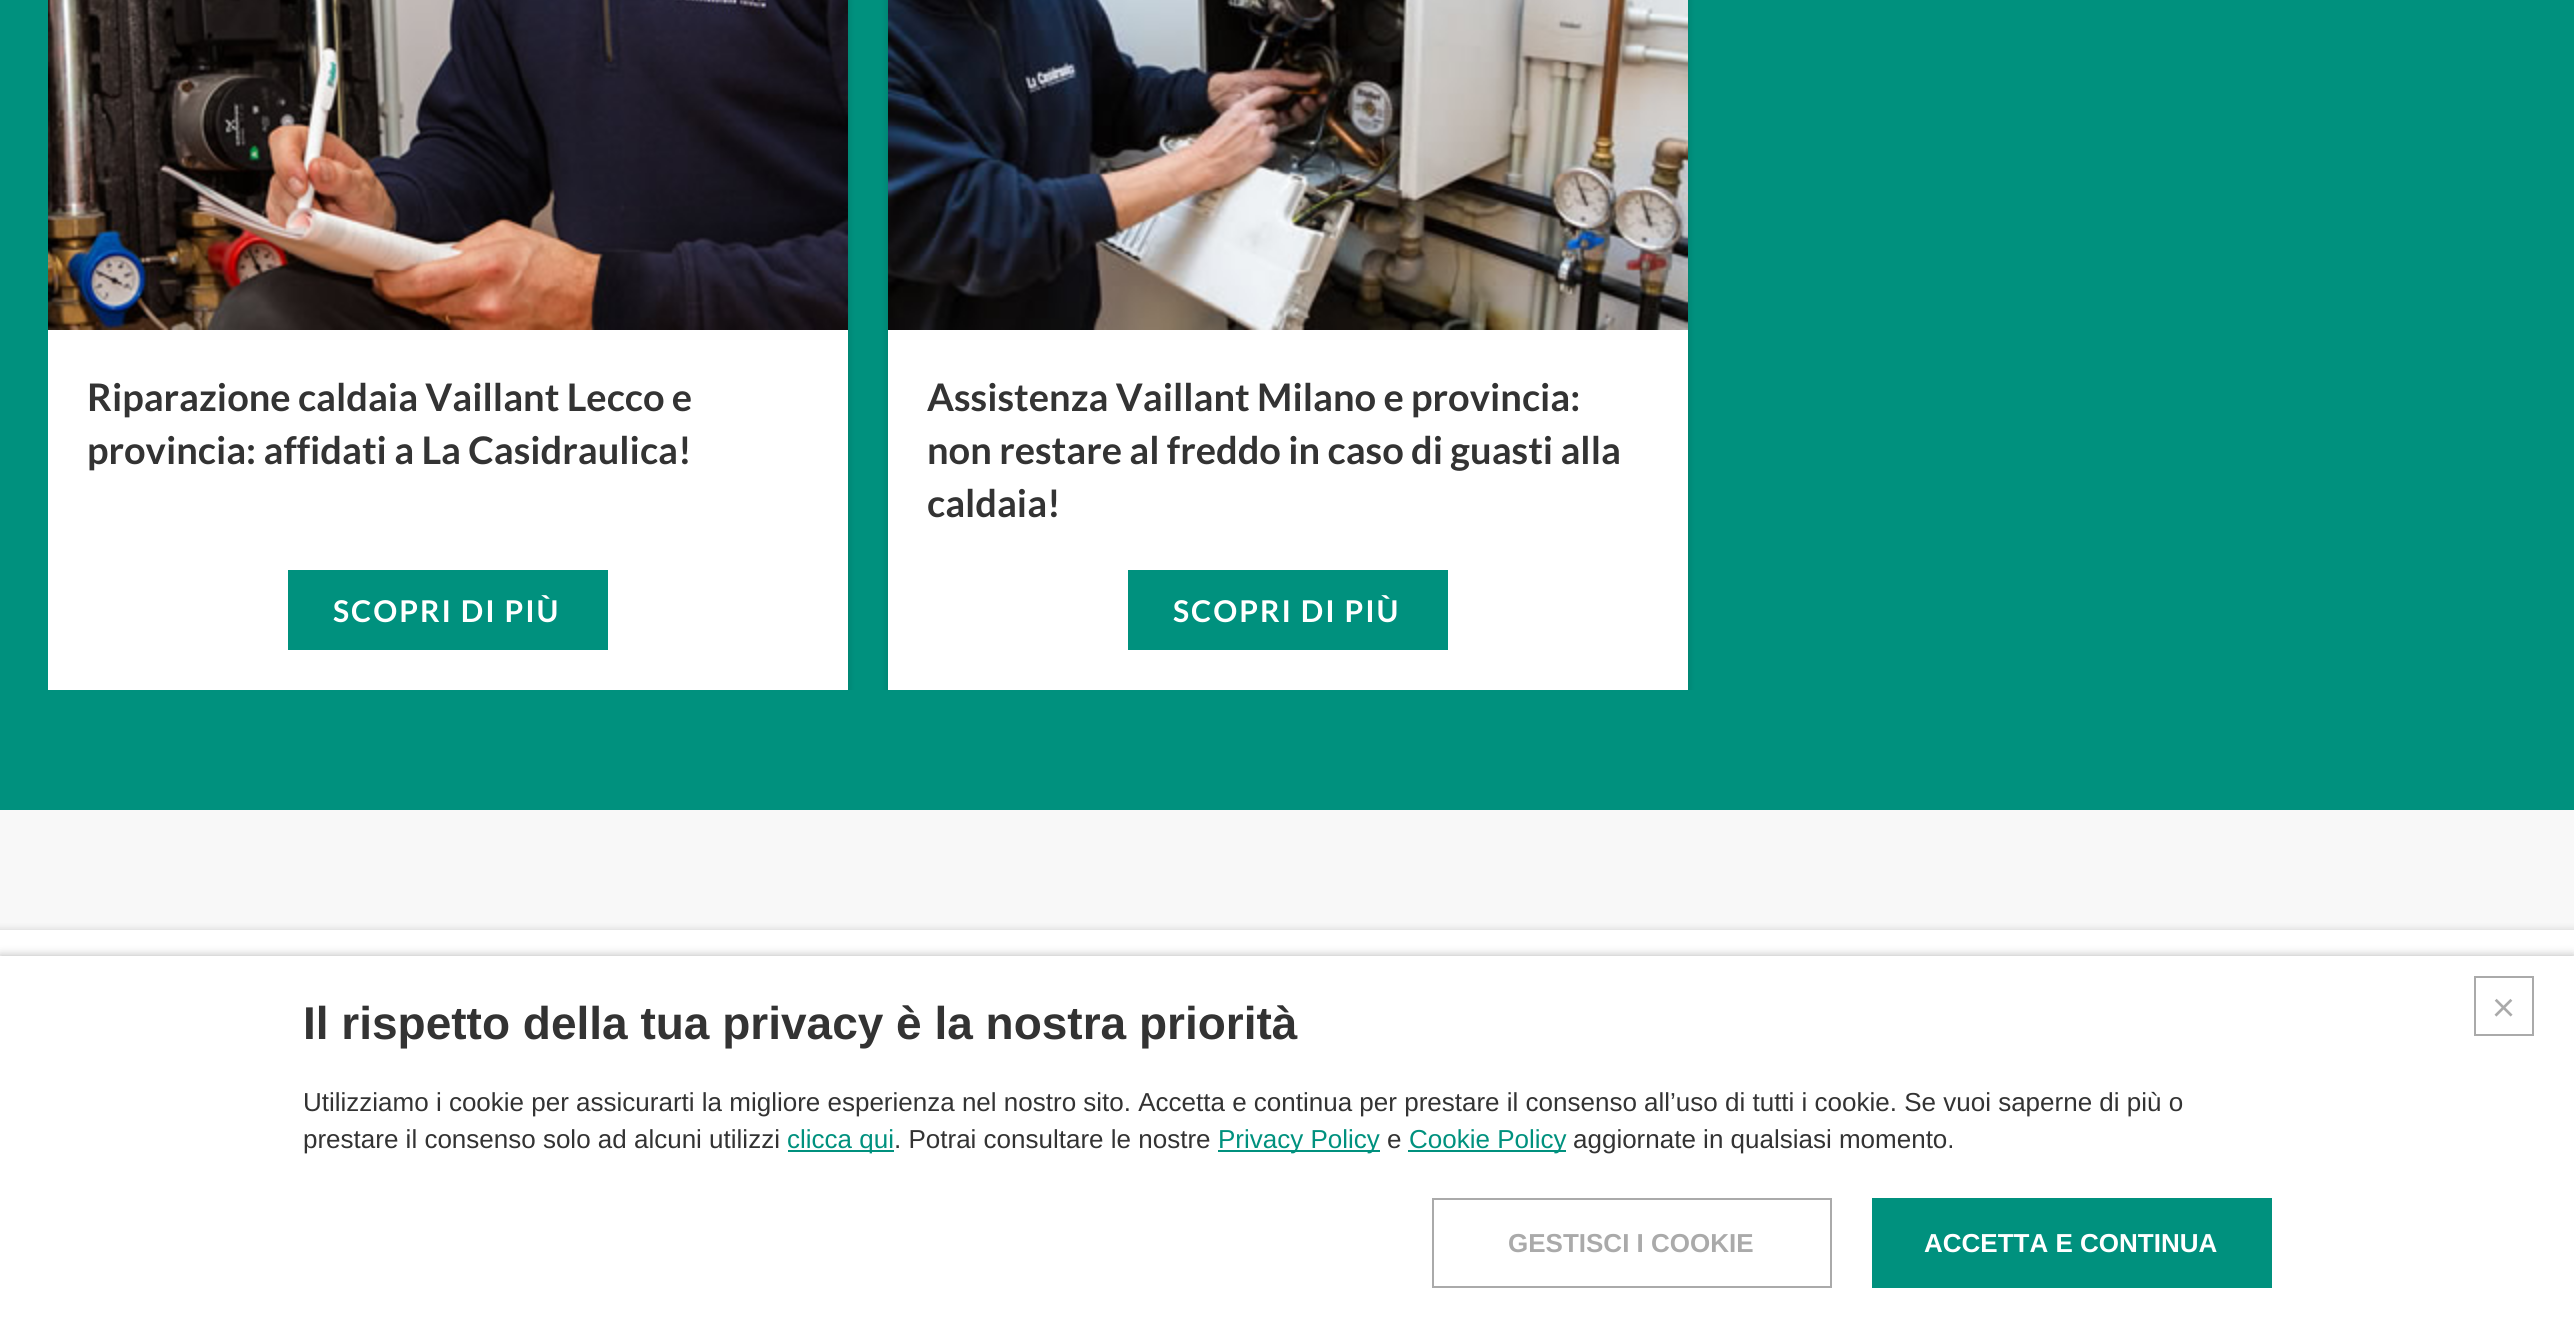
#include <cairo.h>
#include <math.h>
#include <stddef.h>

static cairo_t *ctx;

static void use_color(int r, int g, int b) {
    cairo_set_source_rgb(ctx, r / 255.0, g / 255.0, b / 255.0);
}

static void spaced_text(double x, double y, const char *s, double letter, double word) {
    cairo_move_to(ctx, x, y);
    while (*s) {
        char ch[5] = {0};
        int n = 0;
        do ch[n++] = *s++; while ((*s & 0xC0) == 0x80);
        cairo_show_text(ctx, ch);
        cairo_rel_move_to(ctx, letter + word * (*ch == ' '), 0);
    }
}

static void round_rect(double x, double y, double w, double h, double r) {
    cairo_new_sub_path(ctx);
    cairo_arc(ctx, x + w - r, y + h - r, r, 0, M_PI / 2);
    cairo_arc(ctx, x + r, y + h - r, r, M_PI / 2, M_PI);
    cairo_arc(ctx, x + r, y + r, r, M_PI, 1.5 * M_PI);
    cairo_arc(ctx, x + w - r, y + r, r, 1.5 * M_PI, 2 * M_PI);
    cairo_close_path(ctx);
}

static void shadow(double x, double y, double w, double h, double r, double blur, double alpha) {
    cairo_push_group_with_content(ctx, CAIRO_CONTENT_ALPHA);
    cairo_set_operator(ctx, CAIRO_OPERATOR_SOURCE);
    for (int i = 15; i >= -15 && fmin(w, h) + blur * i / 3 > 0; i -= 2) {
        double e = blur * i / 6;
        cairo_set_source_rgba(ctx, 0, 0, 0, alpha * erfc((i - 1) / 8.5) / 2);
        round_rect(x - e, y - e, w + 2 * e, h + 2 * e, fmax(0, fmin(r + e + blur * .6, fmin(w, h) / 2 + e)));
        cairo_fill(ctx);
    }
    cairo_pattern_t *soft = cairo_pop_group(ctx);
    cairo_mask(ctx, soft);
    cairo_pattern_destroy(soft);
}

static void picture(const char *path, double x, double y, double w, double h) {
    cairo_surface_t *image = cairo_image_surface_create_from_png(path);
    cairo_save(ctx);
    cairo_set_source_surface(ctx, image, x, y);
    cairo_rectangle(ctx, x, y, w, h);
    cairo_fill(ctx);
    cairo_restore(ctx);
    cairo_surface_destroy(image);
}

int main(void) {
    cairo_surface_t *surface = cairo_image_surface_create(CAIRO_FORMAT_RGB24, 2574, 1328);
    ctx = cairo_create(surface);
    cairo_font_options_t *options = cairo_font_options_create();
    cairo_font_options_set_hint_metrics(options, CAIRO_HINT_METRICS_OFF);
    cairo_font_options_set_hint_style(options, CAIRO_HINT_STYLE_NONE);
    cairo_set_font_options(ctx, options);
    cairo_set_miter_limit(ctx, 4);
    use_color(248, 248, 248);
    cairo_paint(ctx);
    use_color(0, 145, 126);
    cairo_rectangle(ctx, 0, 0, 2574, 810);
    cairo_fill(ctx);
    cairo_save(ctx);
    cairo_rectangle(ctx, 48, 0, 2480, 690);
    cairo_clip(ctx);
    use_color(0, 0, 0);
    shadow(46, -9, 804, 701, 0, 3, 0.1);
    cairo_restore(ctx);
    picture("img1.png", 48, 0, 800, 330);
    use_color(255, 255, 255);
    cairo_rectangle(ctx, 48, 330, 800, 360);
    cairo_fill(ctx);
    cairo_select_font_face(ctx, "Lato", CAIRO_FONT_SLANT_NORMAL, CAIRO_FONT_WEIGHT_BOLD);
    cairo_set_font_size(ctx, 38);
    use_color(51, 51, 51);
    cairo_move_to(ctx, 87, 411);
    cairo_show_text(ctx, "Riparazione caldaia Vaillant Lecco e");
    cairo_move_to(ctx, 87, 464);
    cairo_show_text(ctx, "provincia: affidati a La Casidraulica!");
    use_color(0, 145, 126);
    cairo_rectangle(ctx, 288, 570, 320, 80);
    cairo_fill(ctx);
    cairo_set_font_size(ctx, 30);
    use_color(255, 255, 255);
    spaced_text(333, 622, "SCOPRI DI PIÙ", 2, 0);
    cairo_save(ctx);
    cairo_rectangle(ctx, 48, 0, 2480, 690);
    cairo_clip(ctx);
    use_color(0, 0, 0);
    shadow(886, -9, 804, 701, 0, 3, 0.1);
    cairo_restore(ctx);
    picture("img2.png", 888, 0, 800, 330);
    cairo_rectangle(ctx, 888, 330, 800, 360);
    cairo_fill(ctx);
    cairo_set_font_size(ctx, 38);
    use_color(51, 51, 51);
    cairo_move_to(ctx, 927, 411);
    cairo_show_text(ctx, "Assistenza Vaillant Milano e provincia:");
    cairo_move_to(ctx, 927, 464);
    cairo_show_text(ctx, "non restare al freddo in caso di guasti alla");
    cairo_move_to(ctx, 927, 517);
    cairo_show_text(ctx, "caldaia!");
    use_color(0, 145, 126);
    cairo_rectangle(ctx, 1128, 570, 320, 80);
    cairo_fill(ctx);
    cairo_set_font_size(ctx, 30);
    use_color(255, 255, 255);
    spaced_text(1173, 622, "SCOPRI DI PIÙ", 2, 0);
    use_color(0, 0, 0);
    shadow(-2, 928, 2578, 256, 0, 3, 0.1);
    use_color(255, 255, 255);
    cairo_rectangle(ctx, 0, 930, 2574, 26);
    cairo_fill(ctx);
    use_color(0, 0, 0);
    shadow(0, 956, 2574, 372, 0, 5, 0.3);
    use_color(255, 255, 255);
    cairo_rectangle(ctx, 0, 956, 2574, 372);
    cairo_fill(ctx);
    cairo_select_font_face(ctx, "Liberation Sans", CAIRO_FONT_SLANT_NORMAL, CAIRO_FONT_WEIGHT_BOLD);
    cairo_set_font_size(ctx, 46);
    use_color(51, 51, 51);
    cairo_move_to(ctx, 303, 1039);
    cairo_show_text(ctx, "Il rispetto della tua privacy è la nostra priorità");
    cairo_select_font_face(ctx, "Liberation Sans", CAIRO_FONT_SLANT_NORMAL, CAIRO_FONT_WEIGHT_NORMAL);
    cairo_set_font_size(ctx, 26);
    cairo_move_to(ctx, 303, 1111);
    cairo_show_text(ctx, "Utilizziamo i cookie per assicurarti la migliore esperienza nel nostro sito. Accetta e continua per prestare il consenso all’uso di tutti i cookie. Se vuoi saperne di più o");
    cairo_move_to(ctx, 303, 1148);
    cairo_show_text(ctx, "prestare il consenso solo ad alcuni utilizzi");
    use_color(0, 145, 126);
    cairo_rectangle(ctx, 788, 1150, 106, 2);
    cairo_fill(ctx);
    cairo_move_to(ctx, 787, 1148);
    cairo_show_text(ctx, "clicca qui");
    use_color(51, 51, 51);
    cairo_move_to(ctx, 894, 1148);
    cairo_show_text(ctx, ". Potrai consultare le nostre");
    use_color(0, 145, 126);
    cairo_rectangle(ctx, 1218, 1150, 162, 2);
    cairo_fill(ctx);
    cairo_move_to(ctx, 1218, 1148);
    cairo_show_text(ctx, "Privacy Policy");
    use_color(51, 51, 51);
    cairo_move_to(ctx, 1387, 1148);
    cairo_show_text(ctx, "e");
    use_color(0, 145, 126);
    cairo_rectangle(ctx, 1408, 1150, 158, 2);
    cairo_fill(ctx);
    cairo_move_to(ctx, 1409, 1148);
    cairo_show_text(ctx, "Cookie Policy");
    use_color(51, 51, 51);
    cairo_move_to(ctx, 1573, 1148);
    cairo_show_text(ctx, "aggiornate in qualsiasi momento.");
    cairo_rectangle(ctx, 1433, 1199, 398, 88);
    use_color(170, 170, 170);
    cairo_stroke(ctx);
    cairo_select_font_face(ctx, "Liberation Sans", CAIRO_FONT_SLANT_NORMAL, CAIRO_FONT_WEIGHT_BOLD);
    cairo_move_to(ctx, 1508, 1252);
    cairo_show_text(ctx, "GESTISCI I COOKIE");
    use_color(0, 145, 126);
    cairo_rectangle(ctx, 1872, 1198, 400, 90);
    cairo_fill(ctx);
    use_color(255, 255, 255);
    cairo_move_to(ctx, 1924, 1252);
    cairo_show_text(ctx, "ACCETTA E CONTINUA");
    cairo_rectangle(ctx, 2475, 977, 58, 58);
    use_color(170, 170, 170);
    cairo_stroke(ctx);
    cairo_select_font_face(ctx, "Lato", CAIRO_FONT_SLANT_NORMAL, CAIRO_FONT_WEIGHT_NORMAL);
    cairo_set_font_size(ctx, 40);
    cairo_move_to(ctx, 2492, 1021);
    cairo_show_text(ctx, "×");
    cairo_surface_write_to_png(surface, "result.png");
    cairo_font_options_destroy(options);
    cairo_destroy(ctx);
    cairo_surface_destroy(surface);
    return 0;
}
